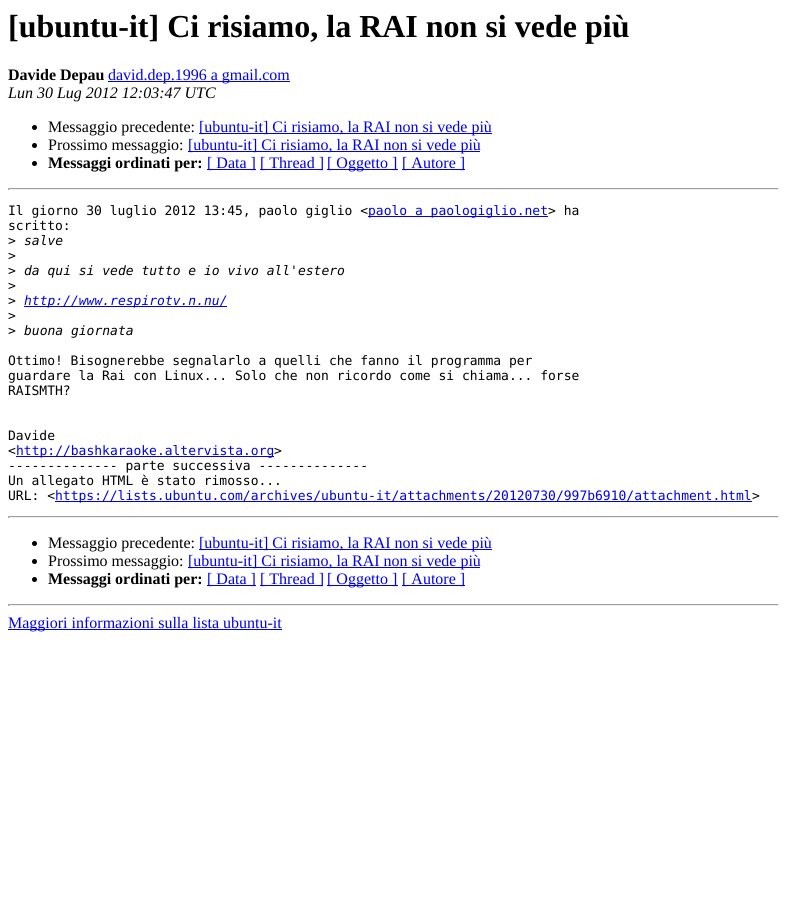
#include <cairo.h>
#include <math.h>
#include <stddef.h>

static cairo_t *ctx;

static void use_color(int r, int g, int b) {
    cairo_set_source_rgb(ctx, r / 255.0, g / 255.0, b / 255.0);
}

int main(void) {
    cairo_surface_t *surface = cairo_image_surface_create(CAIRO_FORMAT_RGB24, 787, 904);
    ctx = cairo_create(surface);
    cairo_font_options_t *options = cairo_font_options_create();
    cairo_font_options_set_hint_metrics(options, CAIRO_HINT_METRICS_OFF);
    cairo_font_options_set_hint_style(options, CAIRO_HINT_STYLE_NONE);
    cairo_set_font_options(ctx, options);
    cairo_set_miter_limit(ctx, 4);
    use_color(255, 255, 255);
    cairo_paint(ctx);
    cairo_select_font_face(ctx, "Liberation Serif", CAIRO_FONT_SLANT_NORMAL, CAIRO_FONT_WEIGHT_BOLD);
    cairo_set_font_size(ctx, 32);
    use_color(0, 0, 0);
    cairo_move_to(ctx, 8, 37);
    cairo_show_text(ctx, "[ubuntu-it] Ci risiamo, la RAI non si vede più");
    cairo_set_font_size(ctx, 16);
    cairo_move_to(ctx, 8, 80);
    cairo_show_text(ctx, "Davide Depau");
    use_color(0, 0, 238);
    cairo_rectangle(ctx, 108, 81, 182, 1);
    cairo_fill(ctx);
    cairo_select_font_face(ctx, "Liberation Serif", CAIRO_FONT_SLANT_NORMAL, CAIRO_FONT_WEIGHT_NORMAL);
    cairo_move_to(ctx, 108, 80);
    cairo_show_text(ctx, "david.dep.1996 a gmail.com");
    cairo_select_font_face(ctx, "Liberation Serif", CAIRO_FONT_SLANT_ITALIC, CAIRO_FONT_WEIGHT_NORMAL);
    use_color(0, 0, 0);
    cairo_move_to(ctx, 8, 98);
    cairo_show_text(ctx, "Lun 30 Lug 2012 12:03:47 UTC");
    cairo_new_path(ctx);
    cairo_arc(ctx, 34.5, 127.5, 2.5, 0, 2 * M_PI);
    cairo_fill(ctx);
    cairo_select_font_face(ctx, "Liberation Serif", CAIRO_FONT_SLANT_NORMAL, CAIRO_FONT_WEIGHT_NORMAL);
    cairo_move_to(ctx, 48, 132);
    cairo_show_text(ctx, "Messaggio precedente:");
    use_color(0, 0, 238);
    cairo_rectangle(ctx, 199, 133, 293, 1);
    cairo_fill(ctx);
    cairo_move_to(ctx, 199, 132);
    cairo_show_text(ctx, "[ubuntu-it] Ci risiamo, la RAI non si vede più");
    use_color(0, 0, 0);
    cairo_new_path(ctx);
    cairo_arc(ctx, 34.5, 145.5, 2.5, 0, 2 * M_PI);
    cairo_fill(ctx);
    cairo_move_to(ctx, 48, 150);
    cairo_show_text(ctx, "Prossimo messaggio:");
    use_color(0, 0, 238);
    cairo_rectangle(ctx, 188, 151, 292, 1);
    cairo_fill(ctx);
    cairo_move_to(ctx, 188, 150);
    cairo_show_text(ctx, "[ubuntu-it] Ci risiamo, la RAI non si vede più");
    use_color(0, 0, 0);
    cairo_new_path(ctx);
    cairo_arc(ctx, 34.5, 163.5, 2.5, 0, 2 * M_PI);
    cairo_fill(ctx);
    cairo_select_font_face(ctx, "Liberation Serif", CAIRO_FONT_SLANT_NORMAL, CAIRO_FONT_WEIGHT_BOLD);
    cairo_move_to(ctx, 48, 168);
    cairo_show_text(ctx, "Messaggi ordinati per:");
    use_color(0, 0, 238);
    cairo_rectangle(ctx, 207, 169, 49, 1);
    cairo_fill(ctx);
    cairo_select_font_face(ctx, "Liberation Serif", CAIRO_FONT_SLANT_NORMAL, CAIRO_FONT_WEIGHT_NORMAL);
    cairo_move_to(ctx, 207, 168);
    cairo_show_text(ctx, "[ Data ]");
    cairo_rectangle(ctx, 260, 169, 63, 1);
    cairo_fill(ctx);
    cairo_move_to(ctx, 260, 168);
    cairo_show_text(ctx, "[ Thread ]");
    cairo_rectangle(ctx, 327, 169, 71, 1);
    cairo_fill(ctx);
    cairo_move_to(ctx, 327, 168);
    cairo_show_text(ctx, "[ Oggetto ]");
    cairo_rectangle(ctx, 402, 169, 63, 1);
    cairo_fill(ctx);
    cairo_move_to(ctx, 402, 168);
    cairo_show_text(ctx, "[ Autore ]");
    use_color(159, 159, 159);
    cairo_rectangle(ctx, 8, 188, 771, 1);
    cairo_fill(ctx);
    use_color(238, 238, 238);
    cairo_rectangle(ctx, 778, 188, 1, 2);
    cairo_fill(ctx);
    cairo_rectangle(ctx, 8, 189, 771, 1);
    cairo_fill(ctx);
    use_color(159, 159, 159);
    cairo_rectangle(ctx, 8, 188, 1, 2);
    cairo_fill(ctx);
    cairo_select_font_face(ctx, "DejaVu Sans Mono", CAIRO_FONT_SLANT_NORMAL, CAIRO_FONT_WEIGHT_NORMAL);
    cairo_set_font_size(ctx, 13);
    use_color(0, 0, 0);
    cairo_move_to(ctx, 8, 215);
    cairo_show_text(ctx, "Il giorno 30 luglio 2012 13:45, paolo giglio <");
    use_color(0, 0, 238);
    cairo_rectangle(ctx, 368, 216, 180, 1);
    cairo_fill(ctx);
    cairo_move_to(ctx, 368, 215);
    cairo_show_text(ctx, "paolo a paologiglio.net");
    use_color(0, 0, 0);
    cairo_move_to(ctx, 548, 215);
    cairo_show_text(ctx, "> ha");
    cairo_move_to(ctx, 8, 230);
    cairo_show_text(ctx, "scritto:");
    cairo_move_to(ctx, 8, 245);
    cairo_show_text(ctx, ">");
    cairo_select_font_face(ctx, "DejaVu Sans Mono", CAIRO_FONT_SLANT_ITALIC, CAIRO_FONT_WEIGHT_NORMAL);
    cairo_move_to(ctx, 24, 245);
    cairo_show_text(ctx, "salve");
    cairo_select_font_face(ctx, "DejaVu Sans Mono", CAIRO_FONT_SLANT_NORMAL, CAIRO_FONT_WEIGHT_NORMAL);
    cairo_move_to(ctx, 8, 260);
    cairo_show_text(ctx, ">");
    cairo_move_to(ctx, 8, 275);
    cairo_show_text(ctx, ">");
    cairo_select_font_face(ctx, "DejaVu Sans Mono", CAIRO_FONT_SLANT_ITALIC, CAIRO_FONT_WEIGHT_NORMAL);
    cairo_move_to(ctx, 24, 275);
    cairo_show_text(ctx, "da qui si vede tutto e io vivo all'estero");
    cairo_select_font_face(ctx, "DejaVu Sans Mono", CAIRO_FONT_SLANT_NORMAL, CAIRO_FONT_WEIGHT_NORMAL);
    cairo_move_to(ctx, 8, 290);
    cairo_show_text(ctx, ">");
    cairo_move_to(ctx, 8, 305);
    cairo_show_text(ctx, ">");
    use_color(0, 0, 238);
    cairo_rectangle(ctx, 24, 306, 203, 1);
    cairo_fill(ctx);
    cairo_select_font_face(ctx, "DejaVu Sans Mono", CAIRO_FONT_SLANT_ITALIC, CAIRO_FONT_WEIGHT_NORMAL);
    cairo_move_to(ctx, 24, 305);
    cairo_show_text(ctx, "http://www.respirotv.n.nu/");
    cairo_select_font_face(ctx, "DejaVu Sans Mono", CAIRO_FONT_SLANT_NORMAL, CAIRO_FONT_WEIGHT_NORMAL);
    use_color(0, 0, 0);
    cairo_move_to(ctx, 8, 320);
    cairo_show_text(ctx, ">");
    cairo_move_to(ctx, 8, 335);
    cairo_show_text(ctx, ">");
    cairo_select_font_face(ctx, "DejaVu Sans Mono", CAIRO_FONT_SLANT_ITALIC, CAIRO_FONT_WEIGHT_NORMAL);
    cairo_move_to(ctx, 24, 335);
    cairo_show_text(ctx, "buona giornata");
    cairo_select_font_face(ctx, "DejaVu Sans Mono", CAIRO_FONT_SLANT_NORMAL, CAIRO_FONT_WEIGHT_NORMAL);
    cairo_move_to(ctx, 8, 365);
    cairo_show_text(ctx, "Ottimo! Bisognerebbe segnalarlo a quelli che fanno il programma per");
    cairo_move_to(ctx, 8, 380);
    cairo_show_text(ctx, "guardare la Rai con Linux... Solo che non ricordo come si chiama... forse");
    cairo_move_to(ctx, 8, 395);
    cairo_show_text(ctx, "RAISMTH?");
    cairo_move_to(ctx, 8, 440);
    cairo_show_text(ctx, "Davide");
    cairo_move_to(ctx, 8, 455);
    cairo_show_text(ctx, "<");
    use_color(0, 0, 238);
    cairo_rectangle(ctx, 16, 456, 258, 1);
    cairo_fill(ctx);
    cairo_move_to(ctx, 16, 455);
    cairo_show_text(ctx, "http://bashkaraoke.altervista.org");
    use_color(0, 0, 0);
    cairo_move_to(ctx, 274, 455);
    cairo_show_text(ctx, ">");
    cairo_move_to(ctx, 8, 470);
    cairo_show_text(ctx, "-------------- parte successiva --------------");
    cairo_move_to(ctx, 8, 485);
    cairo_show_text(ctx, "Un allegato HTML è stato rimosso...");
    cairo_move_to(ctx, 8, 500);
    cairo_show_text(ctx, "URL: <");
    use_color(0, 0, 238);
    cairo_rectangle(ctx, 55, 501, 697, 1);
    cairo_fill(ctx);
    cairo_move_to(ctx, 55, 500);
    cairo_show_text(ctx, "https://lists.ubuntu.com/archives/ubuntu-it/attachments/20120730/997b6910/attachment.html");
    use_color(0, 0, 0);
    cairo_move_to(ctx, 752, 500);
    cairo_show_text(ctx, ">");
    use_color(159, 159, 159);
    cairo_rectangle(ctx, 8, 516, 771, 1);
    cairo_fill(ctx);
    use_color(238, 238, 238);
    cairo_rectangle(ctx, 778, 516, 1, 2);
    cairo_fill(ctx);
    cairo_rectangle(ctx, 8, 517, 771, 1);
    cairo_fill(ctx);
    use_color(159, 159, 159);
    cairo_rectangle(ctx, 8, 516, 1, 2);
    cairo_fill(ctx);
    use_color(0, 0, 0);
    cairo_arc(ctx, 34.5, 543.5, 2.5, 0, 2 * M_PI);
    cairo_fill(ctx);
    cairo_select_font_face(ctx, "Liberation Serif", CAIRO_FONT_SLANT_NORMAL, CAIRO_FONT_WEIGHT_NORMAL);
    cairo_set_font_size(ctx, 16);
    cairo_move_to(ctx, 48, 548);
    cairo_show_text(ctx, "Messaggio precedente:");
    use_color(0, 0, 238);
    cairo_rectangle(ctx, 199, 549, 293, 1);
    cairo_fill(ctx);
    cairo_move_to(ctx, 199, 548);
    cairo_show_text(ctx, "[ubuntu-it] Ci risiamo, la RAI non si vede più");
    use_color(0, 0, 0);
    cairo_new_path(ctx);
    cairo_arc(ctx, 34.5, 561.5, 2.5, 0, 2 * M_PI);
    cairo_fill(ctx);
    cairo_move_to(ctx, 48, 566);
    cairo_show_text(ctx, "Prossimo messaggio:");
    use_color(0, 0, 238);
    cairo_rectangle(ctx, 188, 567, 292, 1);
    cairo_fill(ctx);
    cairo_move_to(ctx, 188, 566);
    cairo_show_text(ctx, "[ubuntu-it] Ci risiamo, la RAI non si vede più");
    use_color(0, 0, 0);
    cairo_new_path(ctx);
    cairo_arc(ctx, 34.5, 579.5, 2.5, 0, 2 * M_PI);
    cairo_fill(ctx);
    cairo_select_font_face(ctx, "Liberation Serif", CAIRO_FONT_SLANT_NORMAL, CAIRO_FONT_WEIGHT_BOLD);
    cairo_move_to(ctx, 48, 584);
    cairo_show_text(ctx, "Messaggi ordinati per:");
    use_color(0, 0, 238);
    cairo_rectangle(ctx, 207, 585, 49, 1);
    cairo_fill(ctx);
    cairo_select_font_face(ctx, "Liberation Serif", CAIRO_FONT_SLANT_NORMAL, CAIRO_FONT_WEIGHT_NORMAL);
    cairo_move_to(ctx, 207, 584);
    cairo_show_text(ctx, "[ Data ]");
    cairo_rectangle(ctx, 260, 585, 63, 1);
    cairo_fill(ctx);
    cairo_move_to(ctx, 260, 584);
    cairo_show_text(ctx, "[ Thread ]");
    cairo_rectangle(ctx, 327, 585, 71, 1);
    cairo_fill(ctx);
    cairo_move_to(ctx, 327, 584);
    cairo_show_text(ctx, "[ Oggetto ]");
    cairo_rectangle(ctx, 402, 585, 63, 1);
    cairo_fill(ctx);
    cairo_move_to(ctx, 402, 584);
    cairo_show_text(ctx, "[ Autore ]");
    use_color(159, 159, 159);
    cairo_rectangle(ctx, 8, 604, 771, 1);
    cairo_fill(ctx);
    use_color(238, 238, 238);
    cairo_rectangle(ctx, 778, 604, 1, 2);
    cairo_fill(ctx);
    cairo_rectangle(ctx, 8, 605, 771, 1);
    cairo_fill(ctx);
    use_color(159, 159, 159);
    cairo_rectangle(ctx, 8, 604, 1, 2);
    cairo_fill(ctx);
    use_color(0, 0, 238);
    cairo_rectangle(ctx, 8, 629, 274, 1);
    cairo_fill(ctx);
    cairo_move_to(ctx, 8, 628);
    cairo_show_text(ctx, "Maggiori informazioni sulla lista ubuntu-it");
    cairo_surface_write_to_png(surface, "result.png");
    cairo_font_options_destroy(options);
    cairo_destroy(ctx);
    cairo_surface_destroy(surface);
    return 0;
}
